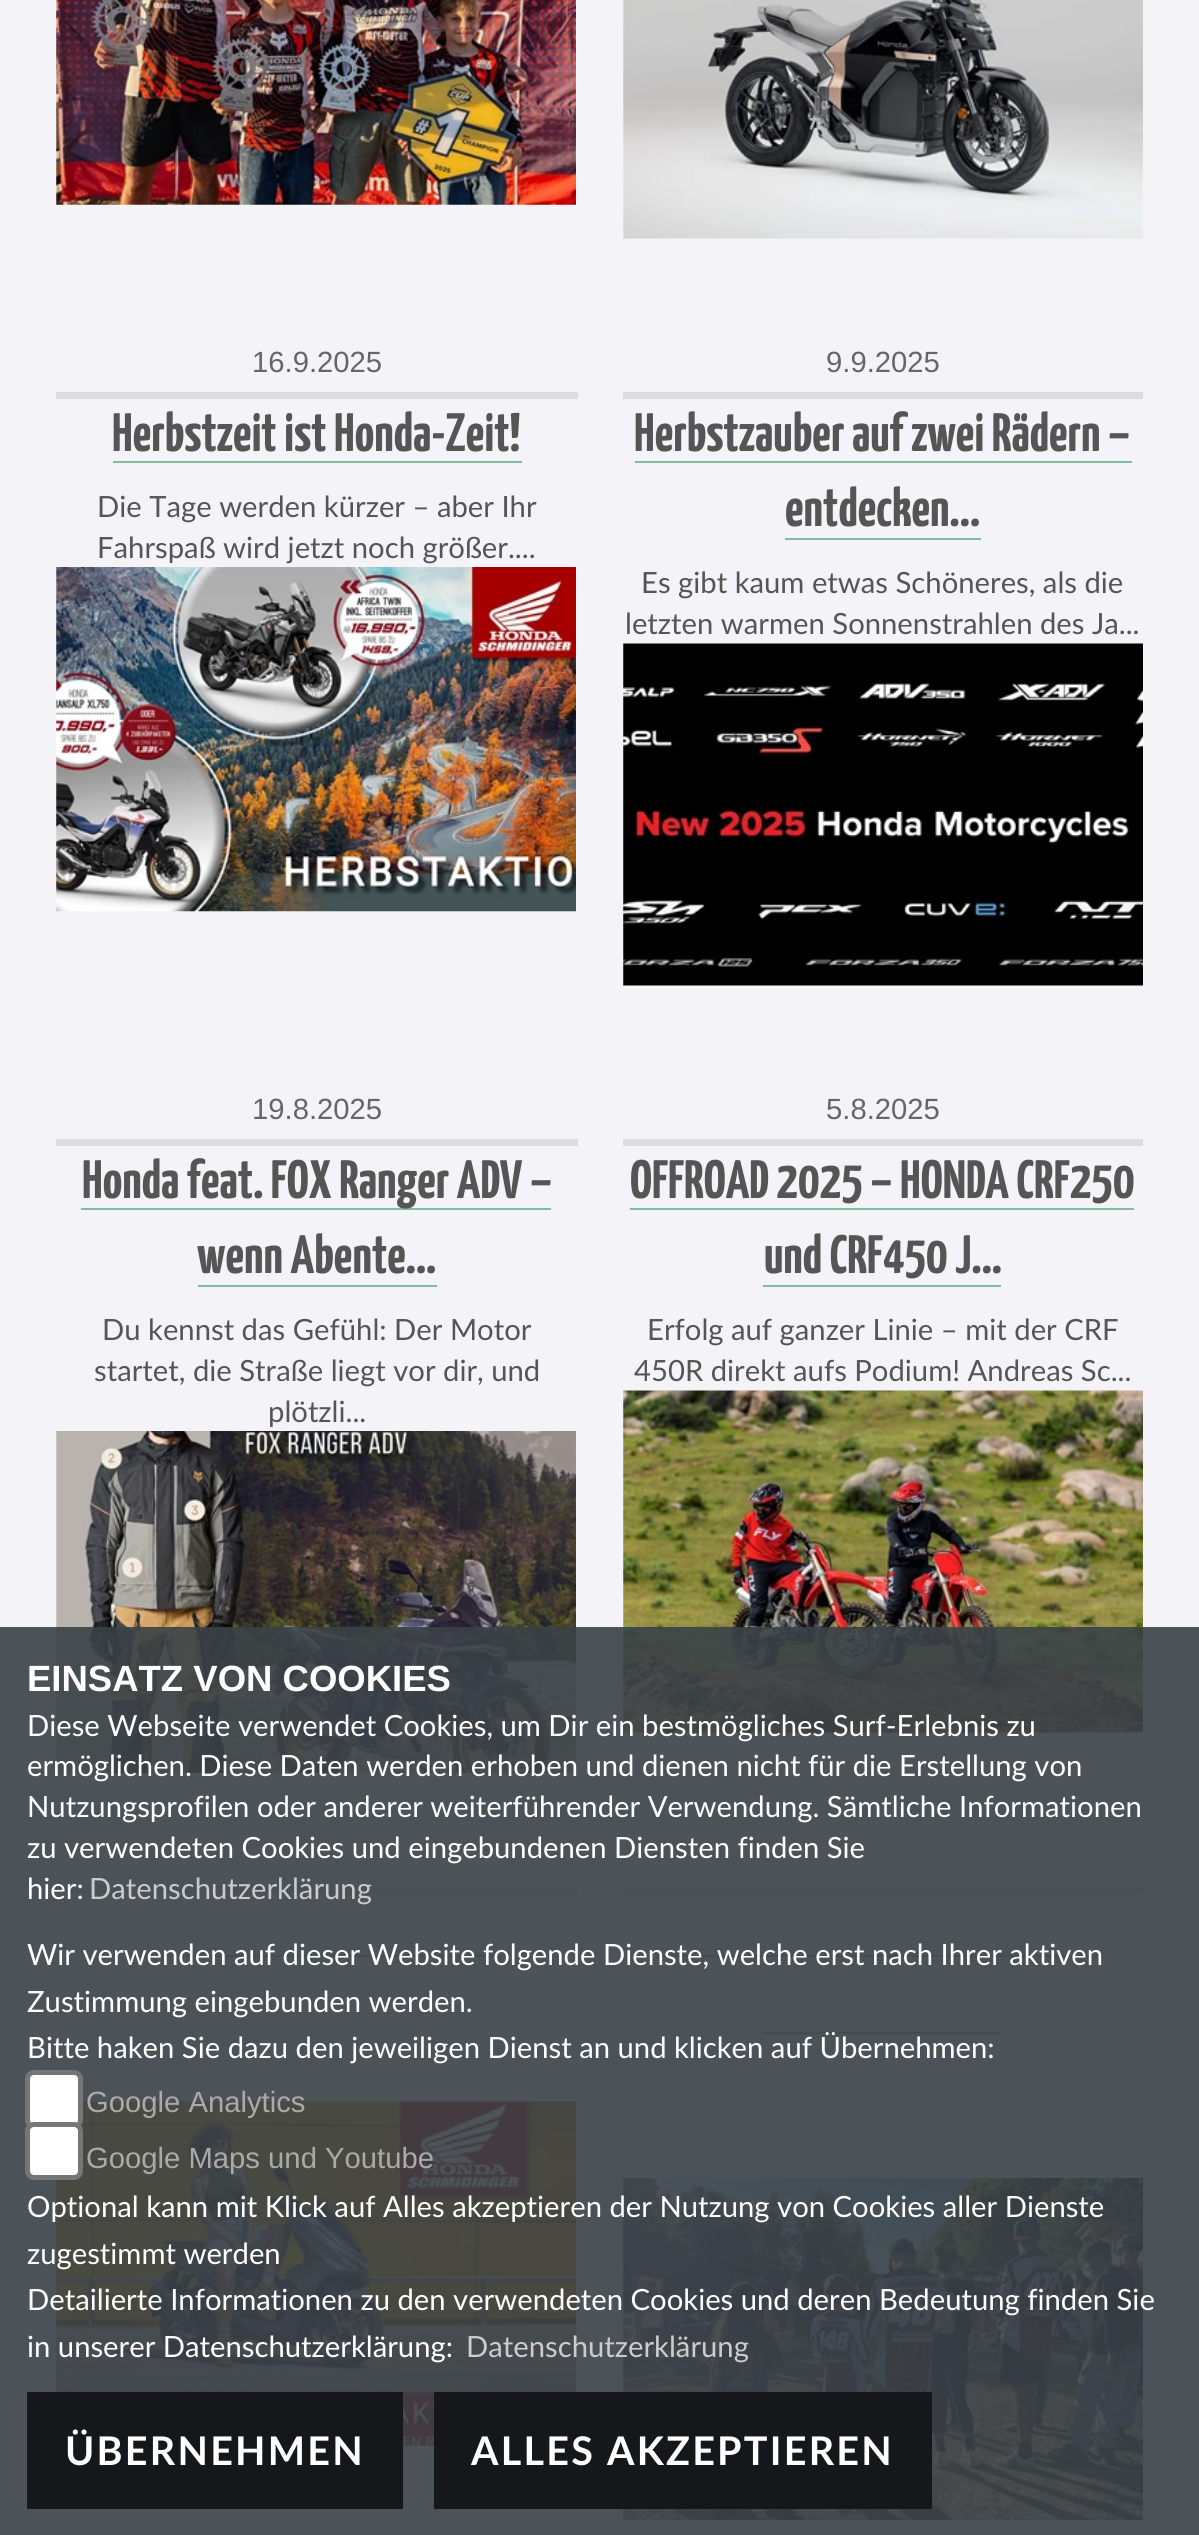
#include <cairo.h>
#include <math.h>
#include <stddef.h>

static cairo_t *ctx;

static void use_color(int r, int g, int b) {
    cairo_set_source_rgb(ctx, r / 255.0, g / 255.0, b / 255.0);
}

static void spaced_text(double x, double y, const char *s, double letter, double word) {
    cairo_move_to(ctx, x, y);
    while (*s) {
        char ch[5] = {0};
        int n = 0;
        do ch[n++] = *s++; while ((*s & 0xC0) == 0x80);
        cairo_show_text(ctx, ch);
        cairo_rel_move_to(ctx, letter + word * (*ch == ' '), 0);
    }
}

static void round_rect(double x, double y, double w, double h, double r) {
    cairo_new_sub_path(ctx);
    cairo_arc(ctx, x + w - r, y + h - r, r, 0, M_PI / 2);
    cairo_arc(ctx, x + r, y + h - r, r, M_PI / 2, M_PI);
    cairo_arc(ctx, x + r, y + r, r, M_PI, 1.5 * M_PI);
    cairo_arc(ctx, x + w - r, y + r, r, 1.5 * M_PI, 2 * M_PI);
    cairo_close_path(ctx);
}

static void picture(const char *path, double x, double y, double w, double h) {
    cairo_surface_t *image = cairo_image_surface_create_from_png(path);
    cairo_save(ctx);
    cairo_set_source_surface(ctx, image, x, y);
    cairo_rectangle(ctx, x, y, w, h);
    cairo_fill(ctx);
    cairo_restore(ctx);
    cairo_surface_destroy(image);
}

int main(void) {
    cairo_surface_t *surface = cairo_image_surface_create(CAIRO_FORMAT_RGB24, 1199, 2535);
    ctx = cairo_create(surface);
    cairo_font_options_t *options = cairo_font_options_create();
    cairo_font_options_set_hint_metrics(options, CAIRO_HINT_METRICS_OFF);
    cairo_font_options_set_hint_style(options, CAIRO_HINT_STYLE_NONE);
    cairo_set_font_options(ctx, options);
    cairo_set_miter_limit(ctx, 4);
    use_color(244, 243, 248);
    cairo_paint(ctx);
    picture("img1.png", 56, 0, 520, 205);
    picture("img2.png", 623, 0, 520, 239);
    use_color(221, 221, 221);
    cairo_rectangle(ctx, 56, 392, 522, 7);
    cairo_fill(ctx);
    cairo_select_font_face(ctx, "Liberation Sans", CAIRO_FONT_SLANT_NORMAL, CAIRO_FONT_WEIGHT_NORMAL);
    cairo_set_font_size(ctx, 29.25);
    use_color(102, 102, 102);
    cairo_move_to(ctx, 252, 372);
    cairo_show_text(ctx, "16.9.2025");
    cairo_select_font_face(ctx, "Yanone Kaffeesatz", CAIRO_FONT_SLANT_NORMAL, CAIRO_FONT_WEIGHT_BOLD);
    cairo_set_font_size(ctx, 54);
    use_color(85, 85, 85);
    cairo_move_to(ctx, 112, 451);
    cairo_show_text(ctx, "Herbstzeit ist Honda-Zeit!");
    use_color(127, 191, 158);
    cairo_rectangle(ctx, 113, 461, 409, 2);
    cairo_fill(ctx);
    cairo_select_font_face(ctx, "Lato", CAIRO_FONT_SLANT_NORMAL, CAIRO_FONT_WEIGHT_NORMAL);
    cairo_set_font_size(ctx, 29.25);
    use_color(85, 85, 85);
    cairo_move_to(ctx, 97, 517);
    cairo_show_text(ctx, "Die Tage werden kürzer – aber Ihr");
    cairo_move_to(ctx, 97, 558);
    cairo_show_text(ctx, "Fahrspaß wird jetzt noch größer....");
    picture("img3.png", 56, 567, 520, 345);
    use_color(221, 221, 221);
    cairo_rectangle(ctx, 623, 392, 520, 7);
    cairo_fill(ctx);
    cairo_select_font_face(ctx, "Liberation Sans", CAIRO_FONT_SLANT_NORMAL, CAIRO_FONT_WEIGHT_NORMAL);
    use_color(102, 102, 102);
    cairo_move_to(ctx, 826, 372);
    cairo_show_text(ctx, "9.9.2025");
    cairo_select_font_face(ctx, "Yanone Kaffeesatz", CAIRO_FONT_SLANT_NORMAL, CAIRO_FONT_WEIGHT_BOLD);
    cairo_set_font_size(ctx, 54);
    use_color(85, 85, 85);
    cairo_move_to(ctx, 634, 451);
    cairo_show_text(ctx, "Herbstzauber auf zwei Rädern –");
    use_color(127, 191, 158);
    cairo_rectangle(ctx, 635, 461, 497, 2);
    cairo_fill(ctx);
    use_color(85, 85, 85);
    cairo_move_to(ctx, 785, 526);
    cairo_show_text(ctx, "entdecken...");
    use_color(127, 191, 158);
    cairo_rectangle(ctx, 785, 538, 196, 2);
    cairo_fill(ctx);
    cairo_select_font_face(ctx, "Lato", CAIRO_FONT_SLANT_NORMAL, CAIRO_FONT_WEIGHT_NORMAL);
    cairo_set_font_size(ctx, 29.25);
    use_color(85, 85, 85);
    cairo_move_to(ctx, 641, 593);
    cairo_show_text(ctx, "Es gibt kaum etwas Schöneres, als die");
    cairo_move_to(ctx, 625, 634);
    cairo_show_text(ctx, "letzten warmen Sonnenstrahlen des Ja...");
    picture("img4.png", 623, 643, 520, 343);
    use_color(221, 221, 221);
    cairo_rectangle(ctx, 56, 1139, 522, 7);
    cairo_fill(ctx);
    cairo_select_font_face(ctx, "Liberation Sans", CAIRO_FONT_SLANT_NORMAL, CAIRO_FONT_WEIGHT_NORMAL);
    use_color(102, 102, 102);
    cairo_move_to(ctx, 252, 1119);
    cairo_show_text(ctx, "19.8.2025");
    use_color(127, 191, 158);
    cairo_rectangle(ctx, 81, 1208, 470, 2);
    cairo_fill(ctx);
    cairo_select_font_face(ctx, "Yanone Kaffeesatz", CAIRO_FONT_SLANT_NORMAL, CAIRO_FONT_WEIGHT_BOLD);
    cairo_set_font_size(ctx, 54);
    use_color(85, 85, 85);
    cairo_move_to(ctx, 82, 1198);
    cairo_show_text(ctx, "Honda feat. FOX Ranger ADV –");
    cairo_move_to(ctx, 197, 1273);
    cairo_show_text(ctx, "wenn Abente...");
    use_color(127, 191, 158);
    cairo_rectangle(ctx, 198, 1285, 239, 2);
    cairo_fill(ctx);
    cairo_select_font_face(ctx, "Lato", CAIRO_FONT_SLANT_NORMAL, CAIRO_FONT_WEIGHT_NORMAL);
    cairo_set_font_size(ctx, 29.25);
    use_color(85, 85, 85);
    cairo_move_to(ctx, 102, 1340);
    cairo_show_text(ctx, "Du kennst das Gefühl: Der Motor");
    cairo_move_to(ctx, 94, 1381);
    cairo_show_text(ctx, "startet, die Straße liegt vor dir, und");
    cairo_move_to(ctx, 268, 1422);
    cairo_show_text(ctx, "plötzli...");
    picture("img5.png", 56, 1431, 520, 342);
    use_color(221, 221, 221);
    cairo_rectangle(ctx, 623, 1139, 520, 7);
    cairo_fill(ctx);
    cairo_select_font_face(ctx, "Liberation Sans", CAIRO_FONT_SLANT_NORMAL, CAIRO_FONT_WEIGHT_NORMAL);
    use_color(102, 102, 102);
    cairo_move_to(ctx, 826, 1119);
    cairo_show_text(ctx, "5.8.2025");
    cairo_select_font_face(ctx, "Yanone Kaffeesatz", CAIRO_FONT_SLANT_NORMAL, CAIRO_FONT_WEIGHT_BOLD);
    cairo_set_font_size(ctx, 54);
    use_color(85, 85, 85);
    cairo_move_to(ctx, 630, 1198);
    cairo_show_text(ctx, "OFFROAD 2025 – HONDA CRF250");
    use_color(127, 191, 158);
    cairo_rectangle(ctx, 630, 1208, 504, 2);
    cairo_fill(ctx);
    use_color(85, 85, 85);
    cairo_move_to(ctx, 764, 1273);
    cairo_show_text(ctx, "und CRF450 J...");
    use_color(127, 191, 158);
    cairo_rectangle(ctx, 763, 1285, 238, 2);
    cairo_fill(ctx);
    cairo_select_font_face(ctx, "Lato", CAIRO_FONT_SLANT_NORMAL, CAIRO_FONT_WEIGHT_NORMAL);
    cairo_set_font_size(ctx, 29.25);
    use_color(85, 85, 85);
    cairo_move_to(ctx, 647, 1340);
    cairo_show_text(ctx, "Erfolg auf ganzer Linie – mit der CRF");
    cairo_move_to(ctx, 634, 1381);
    cairo_show_text(ctx, "450R direkt aufs Podium! Andreas Sc...");
    picture("img6.png", 623, 1390, 520, 343);
    use_color(221, 221, 221);
    cairo_rectangle(ctx, 56, 1886, 522, 7);
    cairo_fill(ctx);
    use_color(127, 191, 158);
    cairo_rectangle(ctx, 131, 1955, 371, 2);
    cairo_fill(ctx);
    picture("img7.png", 56, 2101, 520, 345);
    use_color(221, 221, 221);
    cairo_rectangle(ctx, 623, 1886, 520, 7);
    cairo_fill(ctx);
    use_color(127, 191, 158);
    cairo_rectangle(ctx, 662, 1955, 441, 2);
    cairo_fill(ctx);
    cairo_rectangle(ctx, 763, 2032, 238, 2);
    cairo_fill(ctx);
    picture("img8.png", 623, 2178, 520, 342);
    cairo_set_source_rgba(ctx, 0.227, 0.259, 0.278, 0.9);
    cairo_rectangle(ctx, 0, 1627, 1199, 908);
    cairo_fill(ctx);
    cairo_select_font_face(ctx, "Liberation Sans", CAIRO_FONT_SLANT_NORMAL, CAIRO_FONT_WEIGHT_BOLD);
    cairo_set_font_size(ctx, 36.5);
    use_color(255, 255, 255);
    cairo_move_to(ctx, 27, 1691);
    cairo_show_text(ctx, "EINSATZ VON COOKIES");
    cairo_select_font_face(ctx, "Lato", CAIRO_FONT_SLANT_NORMAL, CAIRO_FONT_WEIGHT_NORMAL);
    cairo_set_font_size(ctx, 29.25);
    cairo_move_to(ctx, 27, 1736);
    cairo_show_text(ctx, "Diese Webseite verwendet Cookies, um Dir ein bestmögliches Surf-Erlebnis zu");
    cairo_move_to(ctx, 27, 1776);
    cairo_show_text(ctx, "ermöglichen. Diese Daten werden erhoben und dienen nicht für die Erstellung von");
    cairo_move_to(ctx, 27, 1817);
    cairo_show_text(ctx, "Nutzungsprofilen oder anderer weiterführender Verwendung. Sämtliche Informationen");
    cairo_move_to(ctx, 27, 1858);
    cairo_show_text(ctx, "zu verwendeten Cookies und eingebundenen Diensten finden Sie");
    cairo_move_to(ctx, 27, 1899);
    cairo_show_text(ctx, "hier:");
    use_color(204, 204, 204);
    cairo_move_to(ctx, 89, 1899);
    cairo_show_text(ctx, "Datenschutzerklärung");
    use_color(255, 255, 255);
    cairo_move_to(ctx, 27, 1965);
    cairo_show_text(ctx, "Wir verwenden auf dieser Website folgende Dienste, welche erst nach Ihrer aktiven");
    cairo_move_to(ctx, 27, 2012);
    cairo_show_text(ctx, "Zustimmung eingebunden werden.");
    cairo_move_to(ctx, 27, 2058);
    cairo_show_text(ctx, "Bitte haken Sie dazu den jeweiligen Dienst an und klicken auf Übernehmen:");
    round_rect(27.5, 2072.5, 53, 54, 6.5);
    cairo_fill_preserve(ctx);
    use_color(118, 118, 118);
    cairo_set_line_width(ctx, 5);
    cairo_stroke(ctx);
    cairo_select_font_face(ctx, "Liberation Sans", CAIRO_FONT_SLANT_NORMAL, CAIRO_FONT_WEIGHT_NORMAL);
    use_color(170, 170, 170);
    cairo_move_to(ctx, 86, 2112);
    cairo_show_text(ctx, "Google Analytics");
    use_color(255, 255, 255);
    round_rect(27.5, 2124.5, 53, 53, 6.5);
    cairo_fill_preserve(ctx);
    use_color(118, 118, 118);
    cairo_stroke(ctx);
    use_color(170, 170, 170);
    cairo_move_to(ctx, 86, 2168);
    cairo_show_text(ctx, "Google Maps und Youtube");
    cairo_select_font_face(ctx, "Lato", CAIRO_FONT_SLANT_NORMAL, CAIRO_FONT_WEIGHT_NORMAL);
    use_color(255, 255, 255);
    cairo_move_to(ctx, 27, 2217);
    cairo_show_text(ctx, "Optional kann mit Klick auf Alles akzeptieren der Nutzung von Cookies aller Dienste");
    cairo_move_to(ctx, 27, 2264);
    cairo_show_text(ctx, "zugestimmt werden");
    cairo_move_to(ctx, 27, 2310);
    cairo_show_text(ctx, "Detailierte Informationen zu den verwendeten Cookies und deren Bedeutung finden Sie");
    cairo_move_to(ctx, 27, 2357);
    cairo_show_text(ctx, "in unserer Datenschutzerklärung:");
    use_color(204, 204, 204);
    cairo_move_to(ctx, 466, 2357);
    cairo_show_text(ctx, "Datenschutzerklärung");
    use_color(22, 23, 26);
    cairo_rectangle(ctx, 27, 2392, 376, 117);
    cairo_fill(ctx);
    cairo_select_font_face(ctx, "Lato", CAIRO_FONT_SLANT_NORMAL, CAIRO_FONT_WEIGHT_BOLD);
    cairo_set_font_size(ctx, 39.5);
    use_color(255, 255, 255);
    spaced_text(65, 2465, "ÜBERNEHMEN", 2.25, 0);
    use_color(22, 23, 26);
    cairo_rectangle(ctx, 434, 2392, 498, 117);
    cairo_fill(ctx);
    use_color(255, 255, 255);
    spaced_text(471, 2465, "ALLES AKZEPTIEREN", 2.25, 0);
    cairo_surface_write_to_png(surface, "result.png");
    cairo_font_options_destroy(options);
    cairo_destroy(ctx);
    cairo_surface_destroy(surface);
    return 0;
}
